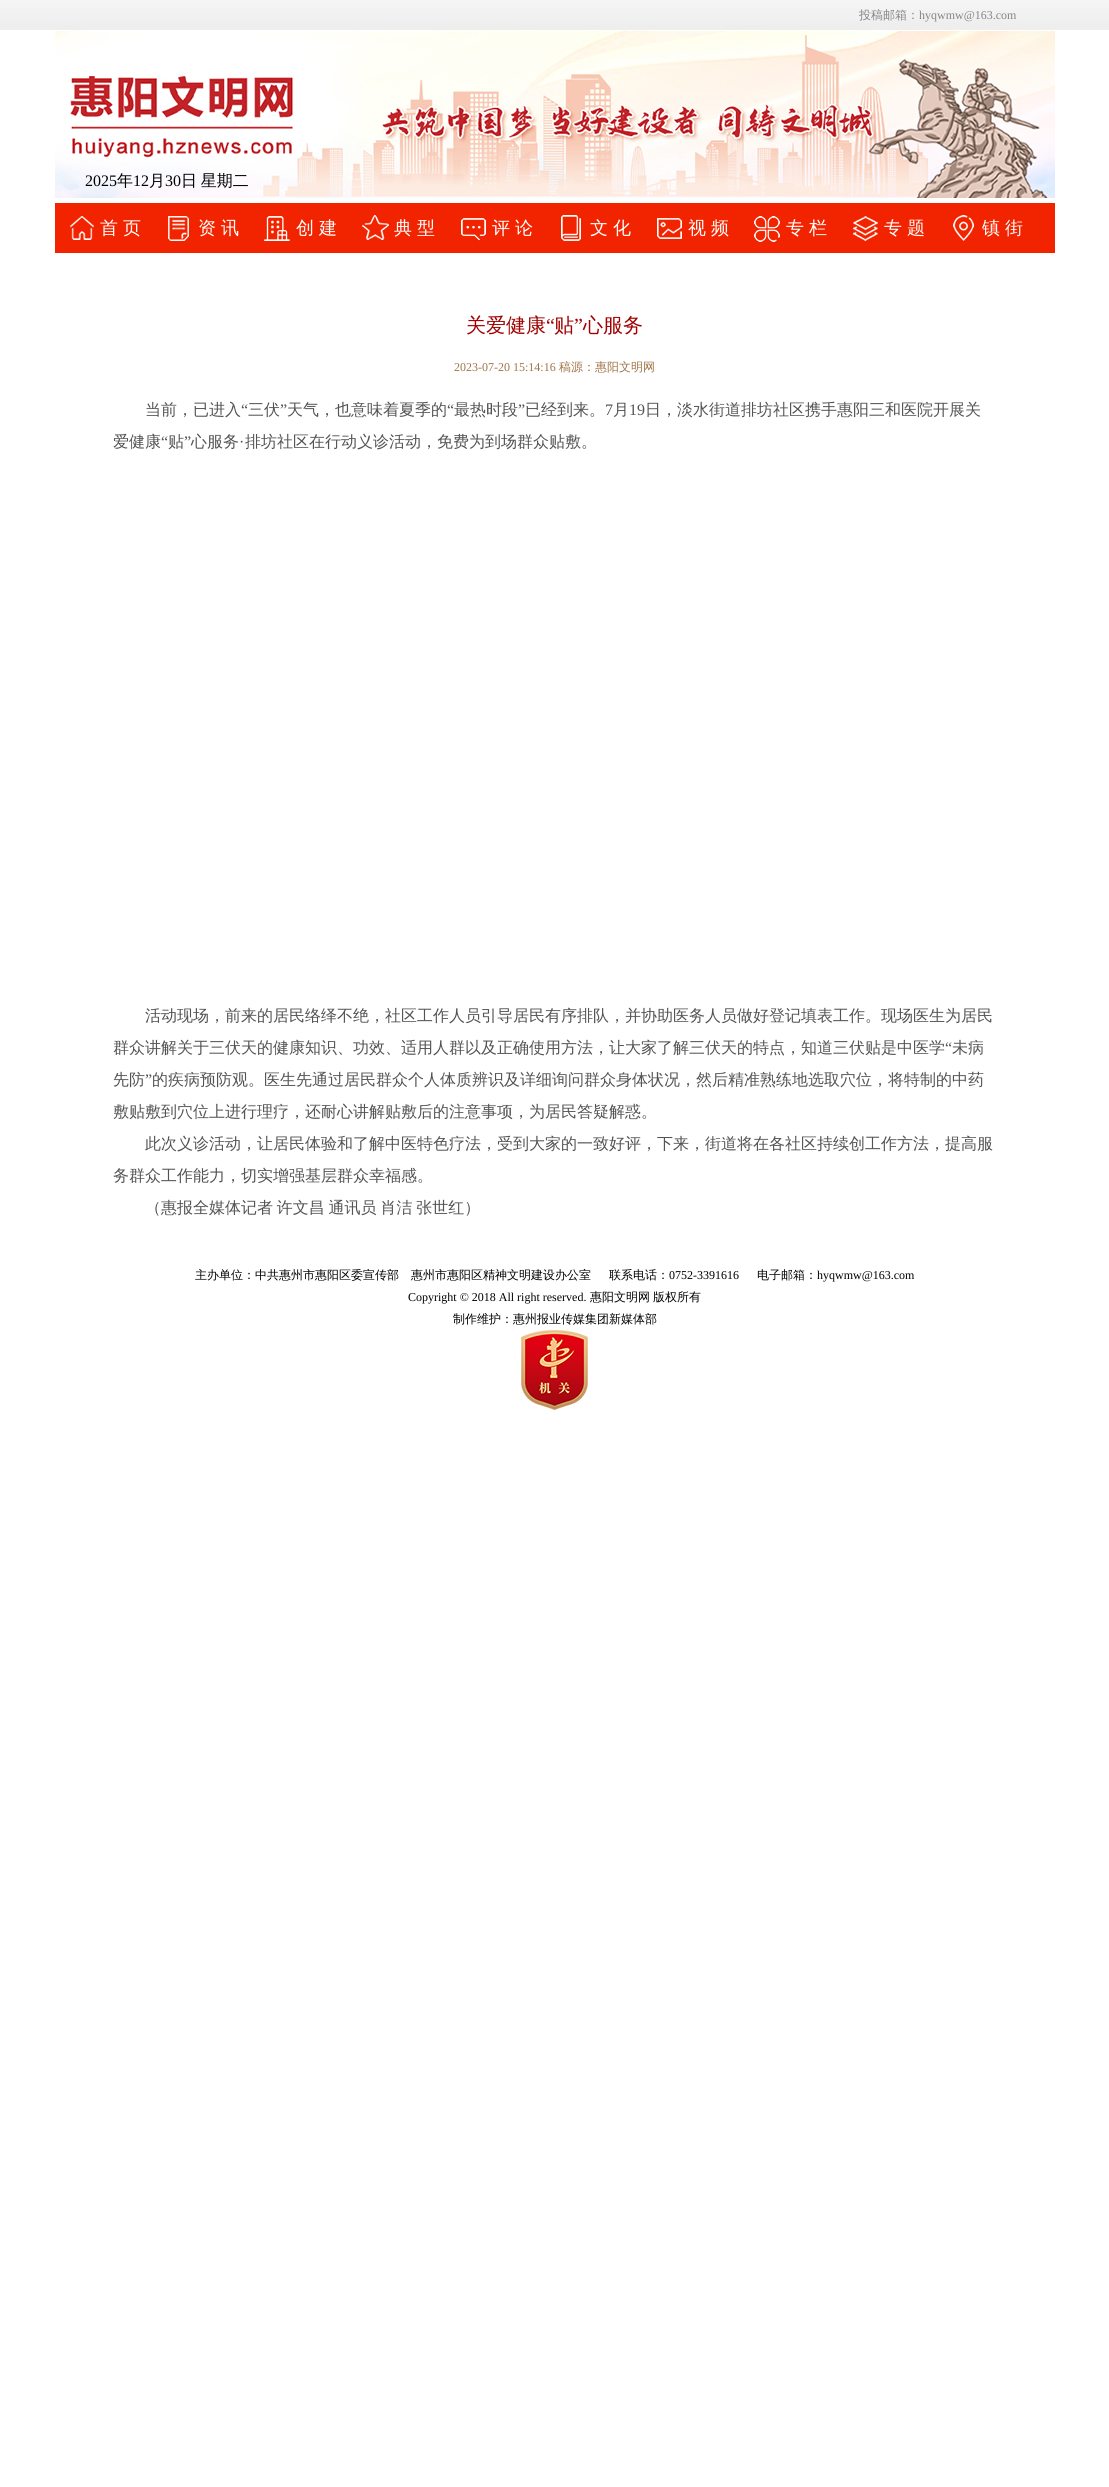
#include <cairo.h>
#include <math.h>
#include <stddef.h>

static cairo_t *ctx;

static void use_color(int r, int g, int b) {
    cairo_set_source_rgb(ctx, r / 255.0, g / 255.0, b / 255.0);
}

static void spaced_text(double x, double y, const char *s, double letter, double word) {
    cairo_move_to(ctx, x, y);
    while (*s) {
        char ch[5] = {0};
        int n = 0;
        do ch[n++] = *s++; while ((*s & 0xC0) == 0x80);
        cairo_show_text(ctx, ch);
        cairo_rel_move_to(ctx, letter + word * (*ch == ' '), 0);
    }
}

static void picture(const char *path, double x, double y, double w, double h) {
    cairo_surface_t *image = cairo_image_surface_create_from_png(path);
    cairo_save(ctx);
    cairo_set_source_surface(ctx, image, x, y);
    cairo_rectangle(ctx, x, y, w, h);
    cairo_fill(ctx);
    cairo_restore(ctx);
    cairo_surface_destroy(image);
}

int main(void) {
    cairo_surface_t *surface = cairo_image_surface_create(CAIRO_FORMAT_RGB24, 1109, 2487);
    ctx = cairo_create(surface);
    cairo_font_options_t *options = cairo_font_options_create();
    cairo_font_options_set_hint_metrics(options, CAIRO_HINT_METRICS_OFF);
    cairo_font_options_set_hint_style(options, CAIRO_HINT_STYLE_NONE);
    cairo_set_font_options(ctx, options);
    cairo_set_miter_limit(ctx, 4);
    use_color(255, 255, 255);
    cairo_paint(ctx);
    picture("img1.png", 0, 0, 1109, 30);
    cairo_select_font_face(ctx, "WenQuanYi Zen Hei Medium", CAIRO_FONT_SLANT_NORMAL, CAIRO_FONT_WEIGHT_NORMAL);
    cairo_set_font_size(ctx, 12);
    use_color(133, 133, 133);
    cairo_move_to(ctx, 859, 19);
    cairo_show_text(ctx, "投稿邮箱：");
    cairo_select_font_face(ctx, "Liberation Serif", CAIRO_FONT_SLANT_NORMAL, CAIRO_FONT_WEIGHT_NORMAL);
    cairo_move_to(ctx, 919, 19);
    cairo_show_text(ctx, "hyqwmw@163.com");
    picture("img2.png", 55, 31, 1000, 167);
    cairo_set_font_size(ctx, 16);
    use_color(0, 0, 0);
    cairo_move_to(ctx, 85, 186);
    cairo_show_text(ctx, "2025");
    cairo_select_font_face(ctx, "WenQuanYi Zen Hei Medium", CAIRO_FONT_SLANT_NORMAL, CAIRO_FONT_WEIGHT_NORMAL);
    cairo_move_to(ctx, 117, 186);
    cairo_show_text(ctx, "年");
    cairo_select_font_face(ctx, "Liberation Serif", CAIRO_FONT_SLANT_NORMAL, CAIRO_FONT_WEIGHT_NORMAL);
    cairo_move_to(ctx, 133, 186);
    cairo_show_text(ctx, "12");
    cairo_select_font_face(ctx, "WenQuanYi Zen Hei Medium", CAIRO_FONT_SLANT_NORMAL, CAIRO_FONT_WEIGHT_NORMAL);
    cairo_move_to(ctx, 149, 186);
    cairo_show_text(ctx, "月");
    cairo_select_font_face(ctx, "Liberation Serif", CAIRO_FONT_SLANT_NORMAL, CAIRO_FONT_WEIGHT_NORMAL);
    cairo_move_to(ctx, 165, 186);
    cairo_show_text(ctx, "30");
    cairo_select_font_face(ctx, "WenQuanYi Zen Hei Medium", CAIRO_FONT_SLANT_NORMAL, CAIRO_FONT_WEIGHT_NORMAL);
    spaced_text(181, 186, "日 星期二", 0, -1);
    use_color(242, 36, 0);
    cairo_rectangle(ctx, 55, 203, 1000, 50);
    cairo_fill(ctx);
    picture("img3.png", 70, 216, 24, 24);
    cairo_set_font_size(ctx, 18);
    use_color(255, 255, 255);
    spaced_text(100, 234, "首页", 5, 0);
    picture("img4.png", 168, 216, 21, 25);
    spaced_text(198, 234, "资讯", 5, 0);
    picture("img5.png", 264, 216, 26, 25);
    spaced_text(296, 234, "创建", 5, 0);
    picture("img6.png", 362, 215, 27, 25);
    spaced_text(394, 234, "典型", 5, 0);
    picture("img7.png", 461, 218, 25, 24);
    spaced_text(492, 234, "评论", 5, 0);
    picture("img8.png", 561, 215, 20, 26);
    spaced_text(590, 234, "文化", 5, 0);
    picture("img9.png", 657, 218, 25, 21);
    spaced_text(688, 234, "视频", 5, 0);
    picture("img10.png", 754, 216, 26, 26);
    spaced_text(786, 234, "专栏", 5, 0);
    picture("img11.png", 853, 216, 25, 25);
    spaced_text(884, 234, "专题", 5, 0);
    picture("img12.png", 953, 215, 21, 26);
    spaced_text(982, 234, "镇街", 5, 0);
    cairo_set_font_size(ctx, 20);
    use_color(161, 1, 1);
    cairo_move_to(ctx, 466, 332);
    cairo_show_text(ctx, "关爱健康");
    cairo_select_font_face(ctx, "Liberation Serif", CAIRO_FONT_SLANT_NORMAL, CAIRO_FONT_WEIGHT_NORMAL);
    cairo_move_to(ctx, 546, 332);
    cairo_show_text(ctx, "“");
    cairo_select_font_face(ctx, "WenQuanYi Zen Hei Medium", CAIRO_FONT_SLANT_NORMAL, CAIRO_FONT_WEIGHT_NORMAL);
    cairo_move_to(ctx, 554, 332);
    cairo_show_text(ctx, "贴");
    cairo_select_font_face(ctx, "Liberation Serif", CAIRO_FONT_SLANT_NORMAL, CAIRO_FONT_WEIGHT_NORMAL);
    cairo_move_to(ctx, 574, 332);
    cairo_show_text(ctx, "”");
    cairo_select_font_face(ctx, "WenQuanYi Zen Hei Medium", CAIRO_FONT_SLANT_NORMAL, CAIRO_FONT_WEIGHT_NORMAL);
    cairo_move_to(ctx, 583, 332);
    cairo_show_text(ctx, "心服务");
    cairo_select_font_face(ctx, "Liberation Serif", CAIRO_FONT_SLANT_NORMAL, CAIRO_FONT_WEIGHT_NORMAL);
    cairo_set_font_size(ctx, 12);
    use_color(160, 116, 70);
    cairo_move_to(ctx, 454, 371);
    cairo_show_text(ctx, "2023-07-20 15:14:16");
    cairo_select_font_face(ctx, "WenQuanYi Zen Hei Medium", CAIRO_FONT_SLANT_NORMAL, CAIRO_FONT_WEIGHT_NORMAL);
    cairo_move_to(ctx, 559, 371);
    cairo_show_text(ctx, "稿源：惠阳文明网");
    cairo_set_font_size(ctx, 16);
    use_color(84, 83, 83);
    cairo_move_to(ctx, 145, 415);
    cairo_show_text(ctx, "当前，已进入");
    cairo_select_font_face(ctx, "Liberation Serif", CAIRO_FONT_SLANT_NORMAL, CAIRO_FONT_WEIGHT_NORMAL);
    cairo_move_to(ctx, 241, 415);
    cairo_show_text(ctx, "“");
    cairo_select_font_face(ctx, "WenQuanYi Zen Hei Medium", CAIRO_FONT_SLANT_NORMAL, CAIRO_FONT_WEIGHT_NORMAL);
    cairo_move_to(ctx, 248, 415);
    cairo_show_text(ctx, "三伏");
    cairo_select_font_face(ctx, "Liberation Serif", CAIRO_FONT_SLANT_NORMAL, CAIRO_FONT_WEIGHT_NORMAL);
    cairo_move_to(ctx, 280, 415);
    cairo_show_text(ctx, "”");
    cairo_select_font_face(ctx, "WenQuanYi Zen Hei Medium", CAIRO_FONT_SLANT_NORMAL, CAIRO_FONT_WEIGHT_NORMAL);
    cairo_move_to(ctx, 287, 415);
    cairo_show_text(ctx, "天气，也意味着夏季的");
    cairo_select_font_face(ctx, "Liberation Serif", CAIRO_FONT_SLANT_NORMAL, CAIRO_FONT_WEIGHT_NORMAL);
    cairo_move_to(ctx, 447, 415);
    cairo_show_text(ctx, "“");
    cairo_select_font_face(ctx, "WenQuanYi Zen Hei Medium", CAIRO_FONT_SLANT_NORMAL, CAIRO_FONT_WEIGHT_NORMAL);
    cairo_move_to(ctx, 454, 415);
    cairo_show_text(ctx, "最热时段");
    cairo_select_font_face(ctx, "Liberation Serif", CAIRO_FONT_SLANT_NORMAL, CAIRO_FONT_WEIGHT_NORMAL);
    cairo_move_to(ctx, 518, 415);
    cairo_show_text(ctx, "”");
    cairo_select_font_face(ctx, "WenQuanYi Zen Hei Medium", CAIRO_FONT_SLANT_NORMAL, CAIRO_FONT_WEIGHT_NORMAL);
    cairo_move_to(ctx, 525, 415);
    cairo_show_text(ctx, "已经到来。");
    cairo_select_font_face(ctx, "Liberation Serif", CAIRO_FONT_SLANT_NORMAL, CAIRO_FONT_WEIGHT_NORMAL);
    cairo_move_to(ctx, 605, 415);
    cairo_show_text(ctx, "7");
    cairo_select_font_face(ctx, "WenQuanYi Zen Hei Medium", CAIRO_FONT_SLANT_NORMAL, CAIRO_FONT_WEIGHT_NORMAL);
    cairo_move_to(ctx, 613, 415);
    cairo_show_text(ctx, "月");
    cairo_select_font_face(ctx, "Liberation Serif", CAIRO_FONT_SLANT_NORMAL, CAIRO_FONT_WEIGHT_NORMAL);
    cairo_move_to(ctx, 629, 415);
    cairo_show_text(ctx, "19");
    cairo_select_font_face(ctx, "WenQuanYi Zen Hei Medium", CAIRO_FONT_SLANT_NORMAL, CAIRO_FONT_WEIGHT_NORMAL);
    cairo_move_to(ctx, 645, 415);
    cairo_show_text(ctx, "日，淡水街道排坊社区携手惠阳三和医院开展关");
    cairo_move_to(ctx, 113, 447);
    cairo_show_text(ctx, "爱健康");
    cairo_select_font_face(ctx, "Liberation Serif", CAIRO_FONT_SLANT_NORMAL, CAIRO_FONT_WEIGHT_NORMAL);
    cairo_move_to(ctx, 161, 447);
    cairo_show_text(ctx, "“");
    cairo_select_font_face(ctx, "WenQuanYi Zen Hei Medium", CAIRO_FONT_SLANT_NORMAL, CAIRO_FONT_WEIGHT_NORMAL);
    cairo_move_to(ctx, 168, 447);
    cairo_show_text(ctx, "贴");
    cairo_select_font_face(ctx, "Liberation Serif", CAIRO_FONT_SLANT_NORMAL, CAIRO_FONT_WEIGHT_NORMAL);
    cairo_move_to(ctx, 184, 447);
    cairo_show_text(ctx, "”");
    cairo_select_font_face(ctx, "WenQuanYi Zen Hei Medium", CAIRO_FONT_SLANT_NORMAL, CAIRO_FONT_WEIGHT_NORMAL);
    cairo_move_to(ctx, 191, 447);
    cairo_show_text(ctx, "心服务");
    cairo_move_to(ctx, 245, 447);
    cairo_show_text(ctx, "排坊社区在行动义诊活动，免费为到场群众贴敷。");
    cairo_select_font_face(ctx, "Liberation Serif", CAIRO_FONT_SLANT_NORMAL, CAIRO_FONT_WEIGHT_NORMAL);
    cairo_move_to(ctx, 239, 447);
    cairo_show_text(ctx, "·");
    cairo_select_font_face(ctx, "WenQuanYi Zen Hei Medium", CAIRO_FONT_SLANT_NORMAL, CAIRO_FONT_WEIGHT_NORMAL);
    cairo_move_to(ctx, 145, 1021);
    cairo_show_text(ctx, "活动现场，前来的居民络绎不绝，社区工作人员引导居民有序排队，并协助医务人员做好登记填表工作。现场医生为居民");
    cairo_move_to(ctx, 113, 1053);
    cairo_show_text(ctx, "群众讲解关于三伏天的健康知识、功效、适用人群以及正确使用方法，让大家了解三伏天的特点，知道三伏贴是中医学");
    cairo_select_font_face(ctx, "Liberation Serif", CAIRO_FONT_SLANT_NORMAL, CAIRO_FONT_WEIGHT_NORMAL);
    cairo_move_to(ctx, 945, 1053);
    cairo_show_text(ctx, "“");
    cairo_select_font_face(ctx, "WenQuanYi Zen Hei Medium", CAIRO_FONT_SLANT_NORMAL, CAIRO_FONT_WEIGHT_NORMAL);
    cairo_move_to(ctx, 952, 1053);
    cairo_show_text(ctx, "未病");
    cairo_move_to(ctx, 113, 1085);
    cairo_show_text(ctx, "先防");
    cairo_select_font_face(ctx, "Liberation Serif", CAIRO_FONT_SLANT_NORMAL, CAIRO_FONT_WEIGHT_NORMAL);
    cairo_move_to(ctx, 145, 1085);
    cairo_show_text(ctx, "”");
    cairo_select_font_face(ctx, "WenQuanYi Zen Hei Medium", CAIRO_FONT_SLANT_NORMAL, CAIRO_FONT_WEIGHT_NORMAL);
    cairo_move_to(ctx, 152, 1085);
    cairo_show_text(ctx, "的疾病预防观。医生先通过居民群众个人体质辨识及详细询问群众身体状况，然后精准熟练地选取穴位，将特制的中药");
    cairo_move_to(ctx, 113, 1117);
    cairo_show_text(ctx, "敷贴敷到穴位上进行理疗，还耐心讲解贴敷后的注意事项，为居民答疑解惑。");
    cairo_move_to(ctx, 145, 1149);
    cairo_show_text(ctx, "此次义诊活动，让居民体验和了解中医特色疗法，受到大家的一致好评，下来，街道将在各社区持续创工作方法，提高服");
    cairo_move_to(ctx, 113, 1181);
    cairo_show_text(ctx, "务群众工作能力，切实增强基层群众幸福感。");
    spaced_text(145, 1213, "（惠报全媒体记者 许文昌 通讯员 肖洁 张世红）", 0, -1);
    cairo_set_font_size(ctx, 12);
    use_color(0, 0, 0);
    cairo_move_to(ctx, 195, 1279);
    cairo_show_text(ctx, "主办单位：中共惠州市惠阳区委宣传部");
    cairo_move_to(ctx, 411, 1279);
    cairo_show_text(ctx, "惠州市惠阳区精神文明建设办公室");
    cairo_move_to(ctx, 609, 1279);
    cairo_show_text(ctx, "联系电话：");
    cairo_select_font_face(ctx, "Liberation Serif", CAIRO_FONT_SLANT_NORMAL, CAIRO_FONT_WEIGHT_NORMAL);
    cairo_move_to(ctx, 669, 1279);
    cairo_show_text(ctx, "0752-3391616");
    cairo_select_font_face(ctx, "WenQuanYi Zen Hei Medium", CAIRO_FONT_SLANT_NORMAL, CAIRO_FONT_WEIGHT_NORMAL);
    cairo_move_to(ctx, 757, 1279);
    cairo_show_text(ctx, "电子邮箱：");
    cairo_select_font_face(ctx, "Liberation Serif", CAIRO_FONT_SLANT_NORMAL, CAIRO_FONT_WEIGHT_NORMAL);
    cairo_move_to(ctx, 817, 1279);
    cairo_show_text(ctx, "hyqwmw@163.com");
    cairo_move_to(ctx, 408, 1301);
    cairo_show_text(ctx, "Copyright © 2018 All right reserved.");
    cairo_select_font_face(ctx, "WenQuanYi Zen Hei Medium", CAIRO_FONT_SLANT_NORMAL, CAIRO_FONT_WEIGHT_NORMAL);
    cairo_move_to(ctx, 590, 1301);
    cairo_show_text(ctx, "惠阳文明网");
    cairo_move_to(ctx, 653, 1301);
    cairo_show_text(ctx, "版权所有");
    cairo_move_to(ctx, 453, 1323);
    cairo_show_text(ctx, "制作维护：惠州报业传媒集团新媒体部");
    picture("img13.png", 521, 1330, 67, 80);
    cairo_surface_write_to_png(surface, "result.png");
    cairo_font_options_destroy(options);
    cairo_destroy(ctx);
    cairo_surface_destroy(surface);
    return 0;
}
